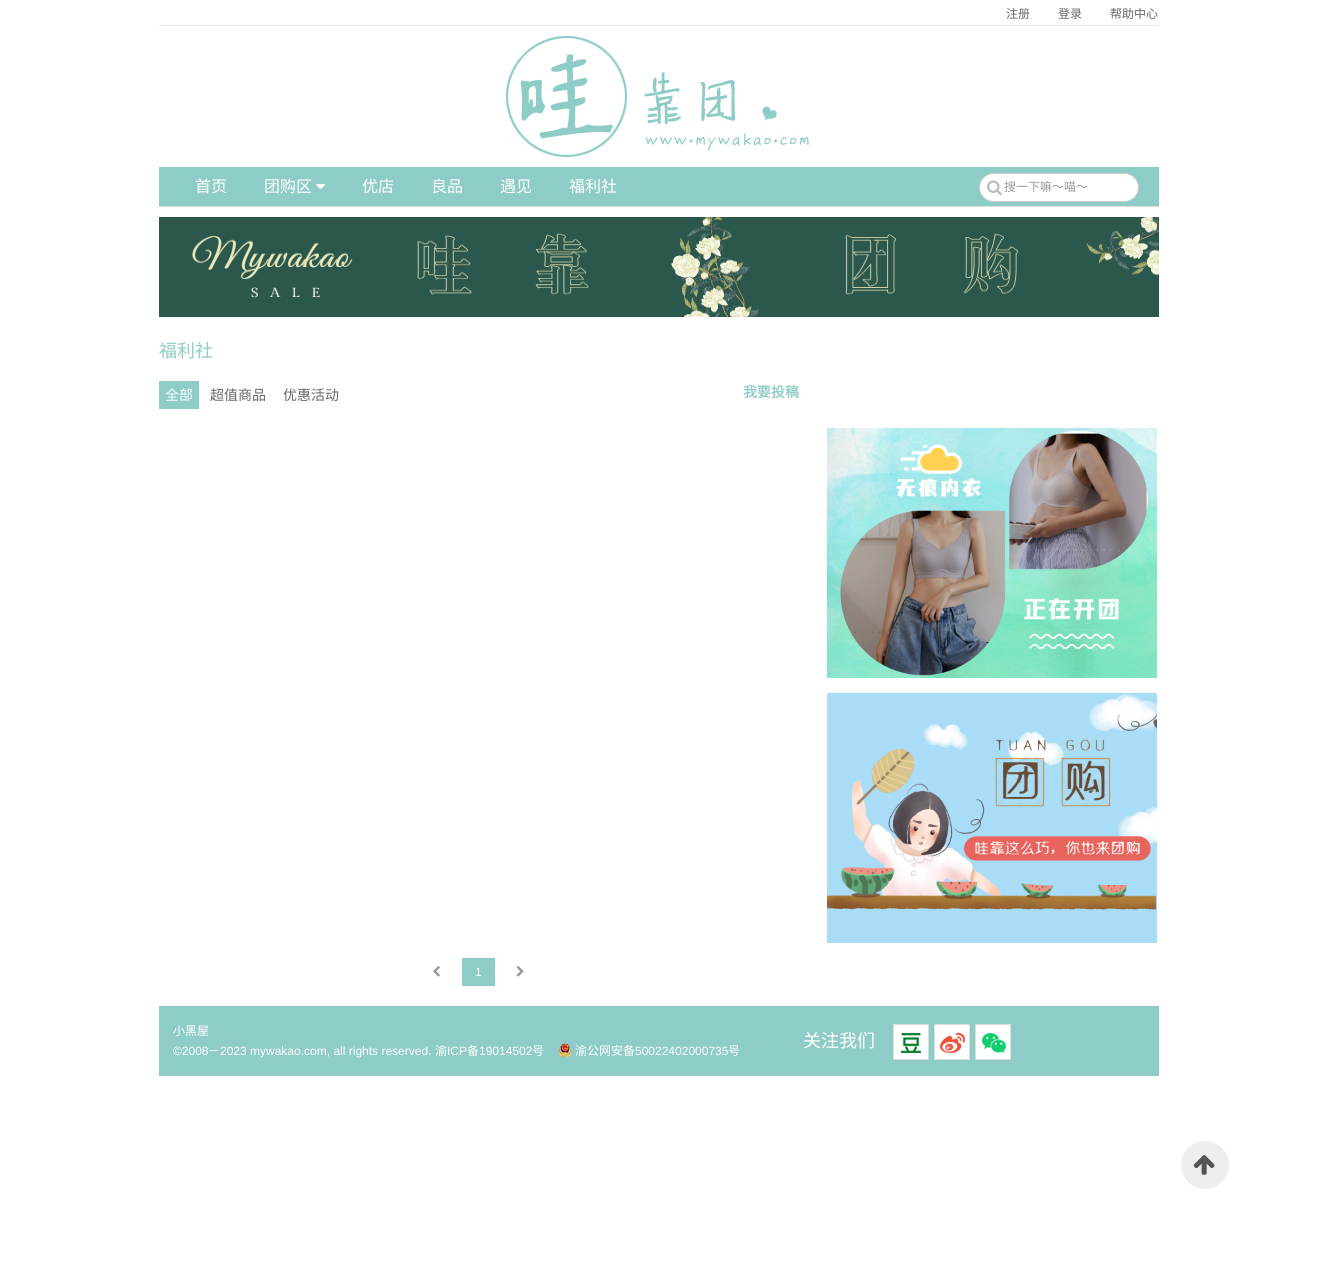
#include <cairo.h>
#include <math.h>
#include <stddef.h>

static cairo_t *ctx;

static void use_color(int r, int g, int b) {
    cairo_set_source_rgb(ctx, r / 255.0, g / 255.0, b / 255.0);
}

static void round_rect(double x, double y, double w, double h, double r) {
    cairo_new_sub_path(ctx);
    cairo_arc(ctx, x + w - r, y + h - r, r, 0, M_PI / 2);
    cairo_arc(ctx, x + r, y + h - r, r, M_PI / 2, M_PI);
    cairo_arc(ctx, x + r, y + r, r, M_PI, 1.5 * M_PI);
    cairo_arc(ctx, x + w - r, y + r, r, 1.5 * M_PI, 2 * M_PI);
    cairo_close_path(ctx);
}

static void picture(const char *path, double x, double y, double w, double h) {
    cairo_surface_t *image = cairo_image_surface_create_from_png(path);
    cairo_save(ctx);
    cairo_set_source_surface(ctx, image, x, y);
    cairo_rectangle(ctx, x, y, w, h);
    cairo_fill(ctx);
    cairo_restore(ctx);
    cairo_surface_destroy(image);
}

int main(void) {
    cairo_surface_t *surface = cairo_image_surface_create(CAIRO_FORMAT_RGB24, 1317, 1263);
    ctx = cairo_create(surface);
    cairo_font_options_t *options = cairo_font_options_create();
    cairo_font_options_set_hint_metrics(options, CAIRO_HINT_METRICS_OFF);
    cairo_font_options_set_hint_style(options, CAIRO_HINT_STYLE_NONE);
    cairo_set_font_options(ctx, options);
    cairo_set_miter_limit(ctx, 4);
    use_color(255, 255, 255);
    cairo_paint(ctx);
    cairo_select_font_face(ctx, "Noto Sans CJK SC", CAIRO_FONT_SLANT_NORMAL, CAIRO_FONT_WEIGHT_NORMAL);
    cairo_set_font_size(ctx, 12);
    use_color(102, 102, 102);
    cairo_move_to(ctx, 1006, 18);
    cairo_show_text(ctx, "注册");
    cairo_move_to(ctx, 1058, 18);
    cairo_show_text(ctx, "登录");
    cairo_move_to(ctx, 1110, 18);
    cairo_show_text(ctx, "帮助中心");
    use_color(230, 230, 230);
    cairo_rectangle(ctx, 159, 25, 1000, 1);
    cairo_fill(ctx);
    picture("img1.png", 506, 36, 303, 121);
    use_color(142, 204, 199);
    cairo_rectangle(ctx, 159, 167, 1000, 39);
    cairo_fill(ctx);
    use_color(221, 221, 221);
    cairo_rectangle(ctx, 159, 206, 1000, 1);
    cairo_fill(ctx);
    cairo_set_font_size(ctx, 16);
    use_color(255, 255, 255);
    cairo_move_to(ctx, 195, 192);
    cairo_show_text(ctx, "首页");
    cairo_move_to(ctx, 264, 192);
    cairo_show_text(ctx, "团购区");
    picture("img2.png", 316, 184, 10, 6);
    cairo_move_to(ctx, 362, 192);
    cairo_show_text(ctx, "优店");
    cairo_move_to(ctx, 431, 192);
    cairo_show_text(ctx, "良品");
    cairo_move_to(ctx, 500, 192);
    cairo_show_text(ctx, "遇见");
    cairo_move_to(ctx, 569, 192);
    cairo_show_text(ctx, "福利社");
    round_rect(979.5, 173.5, 159, 28, 14);
    cairo_fill_preserve(ctx);
    use_color(204, 204, 204);
    cairo_set_line_width(ctx, 1);
    cairo_stroke(ctx);
    picture("img3.png", 987, 180, 15, 16);
    cairo_set_font_size(ctx, 12);
    use_color(153, 153, 153);
    cairo_move_to(ctx, 1004, 191);
    cairo_show_text(ctx, "搜一下嘛～喵～");
    picture("img4.png", 159, 217, 1000, 100);
    cairo_set_font_size(ctx, 18);
    use_color(142, 204, 199);
    cairo_move_to(ctx, 159, 357);
    cairo_show_text(ctx, "福利社");
    cairo_rectangle(ctx, 159, 381, 40, 28);
    cairo_fill(ctx);
    cairo_set_font_size(ctx, 14);
    use_color(255, 255, 255);
    cairo_move_to(ctx, 165, 400);
    cairo_show_text(ctx, "全部");
    use_color(102, 102, 102);
    cairo_move_to(ctx, 210, 400);
    cairo_show_text(ctx, "超值商品");
    cairo_move_to(ctx, 283, 400);
    cairo_show_text(ctx, "优惠活动");
    cairo_select_font_face(ctx, "Noto Sans CJK SC", CAIRO_FONT_SLANT_NORMAL, CAIRO_FONT_WEIGHT_BOLD);
    use_color(142, 204, 199);
    cairo_move_to(ctx, 743, 397);
    cairo_show_text(ctx, "我要投稿");
    picture("img5.png", 827, 428, 330, 250);
    picture("img6.png", 827, 693, 330, 250);
    picture("img7.png", 433, 966, 7, 11);
    cairo_rectangle(ctx, 462, 958, 33, 28);
    cairo_fill(ctx);
    cairo_select_font_face(ctx, "Liberation Sans", CAIRO_FONT_SLANT_NORMAL, CAIRO_FONT_WEIGHT_NORMAL);
    cairo_set_font_size(ctx, 12);
    use_color(255, 255, 255);
    cairo_move_to(ctx, 475, 976);
    cairo_show_text(ctx, "1");
    picture("img8.png", 516, 966, 8, 11);
    use_color(142, 204, 199);
    cairo_rectangle(ctx, 159, 1006, 1000, 70);
    cairo_fill(ctx);
    cairo_select_font_face(ctx, "Noto Sans CJK SC", CAIRO_FONT_SLANT_NORMAL, CAIRO_FONT_WEIGHT_NORMAL);
    use_color(255, 255, 255);
    cairo_move_to(ctx, 173, 1035);
    cairo_show_text(ctx, "小黑屋");
    cairo_select_font_face(ctx, "Liberation Sans", CAIRO_FONT_SLANT_NORMAL, CAIRO_FONT_WEIGHT_NORMAL);
    cairo_move_to(ctx, 173, 1055);
    cairo_show_text(ctx, "©2008");
    cairo_select_font_face(ctx, "Noto Sans CJK SC", CAIRO_FONT_SLANT_NORMAL, CAIRO_FONT_WEIGHT_NORMAL);
    cairo_move_to(ctx, 208, 1055);
    cairo_show_text(ctx, "－");
    cairo_select_font_face(ctx, "Liberation Sans", CAIRO_FONT_SLANT_NORMAL, CAIRO_FONT_WEIGHT_NORMAL);
    cairo_move_to(ctx, 220, 1055);
    cairo_show_text(ctx, "2023 mywakao.com, all rights reserved.");
    cairo_select_font_face(ctx, "Noto Sans CJK SC", CAIRO_FONT_SLANT_NORMAL, CAIRO_FONT_WEIGHT_NORMAL);
    cairo_move_to(ctx, 435, 1055);
    cairo_show_text(ctx, "渝");
    cairo_select_font_face(ctx, "Liberation Sans", CAIRO_FONT_SLANT_NORMAL, CAIRO_FONT_WEIGHT_NORMAL);
    cairo_move_to(ctx, 447, 1055);
    cairo_show_text(ctx, "ICP");
    cairo_select_font_face(ctx, "Noto Sans CJK SC", CAIRO_FONT_SLANT_NORMAL, CAIRO_FONT_WEIGHT_NORMAL);
    cairo_move_to(ctx, 467, 1055);
    cairo_show_text(ctx, "备");
    cairo_select_font_face(ctx, "Liberation Sans", CAIRO_FONT_SLANT_NORMAL, CAIRO_FONT_WEIGHT_NORMAL);
    cairo_move_to(ctx, 479, 1055);
    cairo_show_text(ctx, "19014502");
    cairo_select_font_face(ctx, "Noto Sans CJK SC", CAIRO_FONT_SLANT_NORMAL, CAIRO_FONT_WEIGHT_NORMAL);
    cairo_move_to(ctx, 532, 1055);
    cairo_show_text(ctx, "号");
    picture("img9.png", 558, 1043, 14, 14);
    cairo_move_to(ctx, 575, 1055);
    cairo_show_text(ctx, "渝公网安备");
    cairo_select_font_face(ctx, "Liberation Sans", CAIRO_FONT_SLANT_NORMAL, CAIRO_FONT_WEIGHT_NORMAL);
    cairo_move_to(ctx, 635, 1055);
    cairo_show_text(ctx, "50022402000735");
    cairo_select_font_face(ctx, "Noto Sans CJK SC", CAIRO_FONT_SLANT_NORMAL, CAIRO_FONT_WEIGHT_NORMAL);
    cairo_move_to(ctx, 728, 1055);
    cairo_show_text(ctx, "号");
    cairo_set_font_size(ctx, 18);
    cairo_move_to(ctx, 803, 1047);
    cairo_show_text(ctx, "关注我们");
    cairo_rectangle(ctx, 894, 1025, 34, 34);
    cairo_fill(ctx);
    picture("img10.png", 901, 1033, 20, 20);
    cairo_rectangle(ctx, 893.5, 1024.5, 35, 35);
    use_color(221, 221, 221);
    cairo_stroke(ctx);
    use_color(255, 255, 255);
    cairo_rectangle(ctx, 935, 1025, 34, 34);
    cairo_fill(ctx);
    picture("img11.png", 940, 1033, 25, 20);
    cairo_rectangle(ctx, 934.5, 1024.5, 35, 35);
    use_color(221, 221, 221);
    cairo_stroke(ctx);
    use_color(255, 255, 255);
    cairo_rectangle(ctx, 976, 1025, 34, 34);
    cairo_fill(ctx);
    picture("img12.png", 982, 1033, 24, 20);
    cairo_rectangle(ctx, 975.5, 1024.5, 35, 35);
    use_color(221, 221, 221);
    cairo_stroke(ctx);
    use_color(238, 238, 238);
    cairo_arc(ctx, 1205, 1165, 24, 0, 2 * M_PI);
    cairo_fill(ctx);
    picture("img13.png", 1193, 1155, 22, 20);
    cairo_surface_write_to_png(surface, "result.png");
    cairo_font_options_destroy(options);
    cairo_destroy(ctx);
    cairo_surface_destroy(surface);
    return 0;
}
